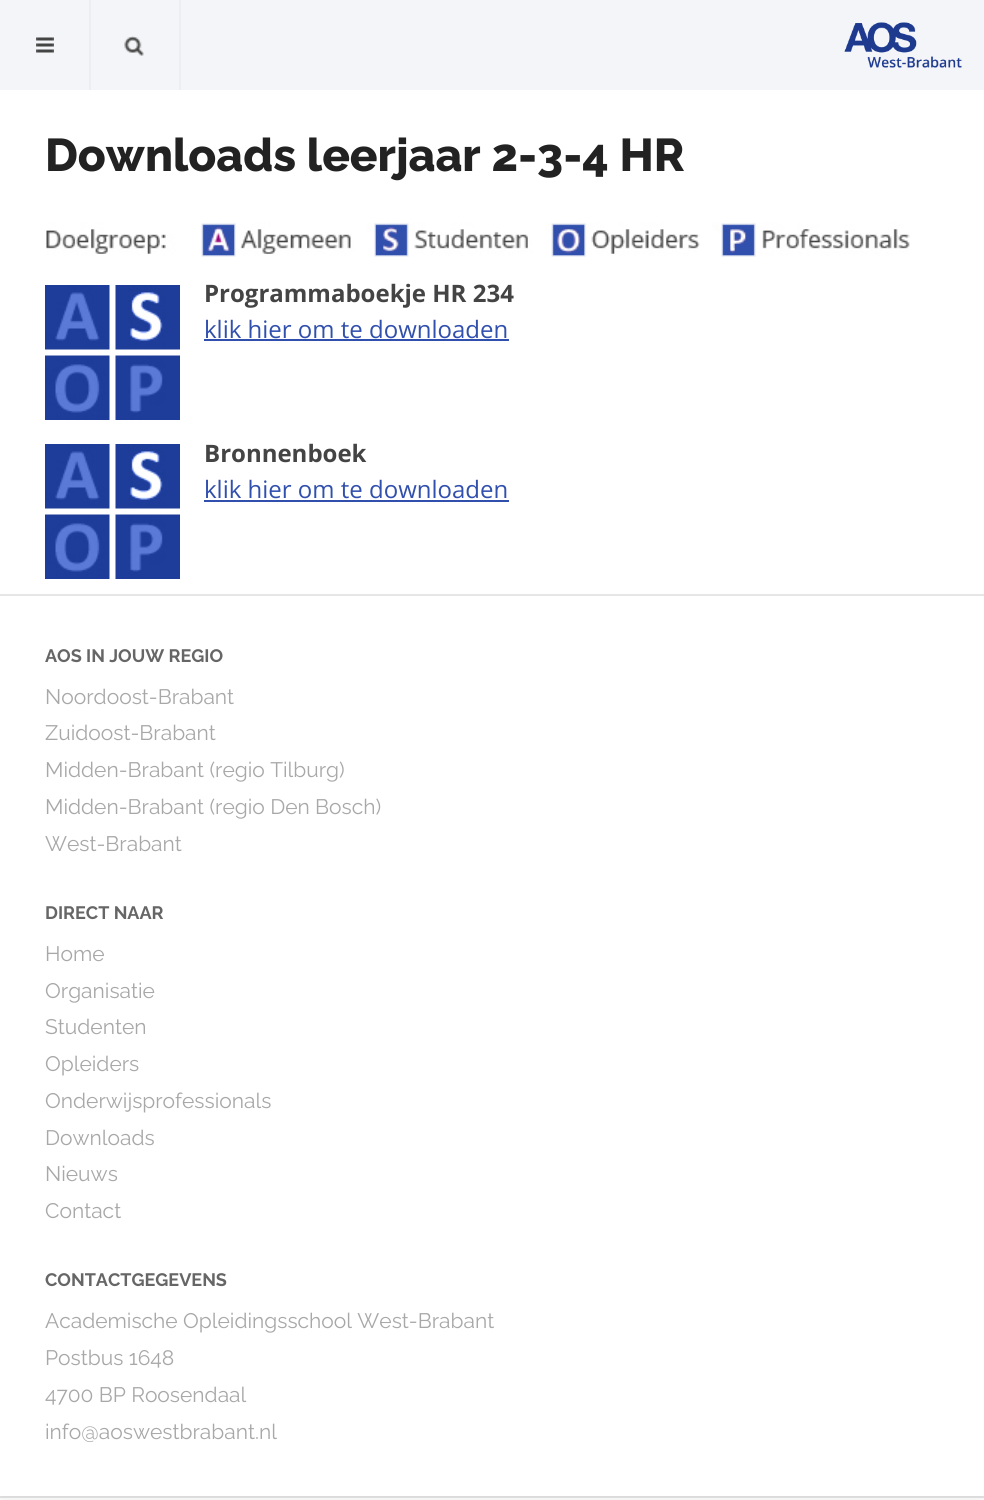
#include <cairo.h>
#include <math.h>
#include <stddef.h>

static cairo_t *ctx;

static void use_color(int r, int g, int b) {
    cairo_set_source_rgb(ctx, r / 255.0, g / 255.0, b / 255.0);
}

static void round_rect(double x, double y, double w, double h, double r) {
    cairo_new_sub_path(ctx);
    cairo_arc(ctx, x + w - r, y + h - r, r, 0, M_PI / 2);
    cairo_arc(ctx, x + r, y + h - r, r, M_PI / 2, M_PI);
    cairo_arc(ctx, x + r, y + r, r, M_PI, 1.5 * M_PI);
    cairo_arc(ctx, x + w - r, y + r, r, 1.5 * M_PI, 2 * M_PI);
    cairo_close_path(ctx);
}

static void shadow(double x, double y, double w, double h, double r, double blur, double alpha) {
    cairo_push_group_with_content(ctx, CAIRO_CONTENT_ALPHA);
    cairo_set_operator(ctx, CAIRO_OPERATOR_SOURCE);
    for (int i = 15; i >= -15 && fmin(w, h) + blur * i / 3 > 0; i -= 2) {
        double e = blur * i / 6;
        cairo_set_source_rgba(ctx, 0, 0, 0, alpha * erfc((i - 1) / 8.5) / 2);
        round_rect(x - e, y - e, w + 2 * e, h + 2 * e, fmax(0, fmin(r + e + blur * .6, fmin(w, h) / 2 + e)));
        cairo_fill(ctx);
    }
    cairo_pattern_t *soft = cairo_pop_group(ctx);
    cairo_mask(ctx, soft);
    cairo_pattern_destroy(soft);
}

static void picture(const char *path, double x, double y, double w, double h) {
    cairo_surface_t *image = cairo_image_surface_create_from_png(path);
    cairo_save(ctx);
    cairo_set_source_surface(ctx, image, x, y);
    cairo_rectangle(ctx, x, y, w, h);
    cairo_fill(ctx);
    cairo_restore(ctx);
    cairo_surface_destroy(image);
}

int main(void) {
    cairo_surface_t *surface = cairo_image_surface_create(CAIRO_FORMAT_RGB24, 984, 1500);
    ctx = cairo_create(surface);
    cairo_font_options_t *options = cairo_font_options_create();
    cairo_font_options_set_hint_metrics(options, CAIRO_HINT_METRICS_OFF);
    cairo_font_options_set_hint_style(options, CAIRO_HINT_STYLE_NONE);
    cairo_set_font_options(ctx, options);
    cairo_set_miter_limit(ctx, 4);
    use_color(255, 255, 255);
    cairo_paint(ctx);
    use_color(230, 230, 230);
    cairo_rectangle(ctx, 0, 1496, 984, 2);
    cairo_fill(ctx);
    use_color(0, 0, 0);
    shadow(0, 0, 984, 1496, 0, 7.5, 0.1);
    use_color(255, 255, 255);
    cairo_rectangle(ctx, 0, 90, 984, 1406);
    cairo_fill(ctx);
    use_color(244, 245, 248);
    cairo_rectangle(ctx, 0, 0, 984, 90);
    cairo_fill(ctx);
    use_color(237, 238, 241);
    cairo_rectangle(ctx, 89, 0, 2, 90);
    cairo_fill(ctx);
    picture("img1.png", 36, 37, 18, 16);
    cairo_rectangle(ctx, 179, 0, 2, 90);
    cairo_fill(ctx);
    picture("img2.png", 124, 36, 20, 20);
    picture("img3.png", 844, 22, 118, 46);
    cairo_select_font_face(ctx, "Raleway ExtraBold", CAIRO_FONT_SLANT_NORMAL, CAIRO_FONT_WEIGHT_NORMAL);
    cairo_set_font_size(ctx, 45.9);
    use_color(34, 34, 34);
    cairo_move_to(ctx, 45, 171);
    cairo_show_text(ctx, "Downloads leerjaar 2-3-4 HR");
    picture("img4.png", 46, 222, 864, 35);
    picture("img5.png", 45, 285, 135, 135);
    cairo_select_font_face(ctx, "Open Sans", CAIRO_FONT_SLANT_NORMAL, CAIRO_FONT_WEIGHT_BOLD);
    cairo_set_font_size(ctx, 24);
    use_color(68, 68, 68);
    cairo_move_to(ctx, 204, 302);
    cairo_show_text(ctx, "Programmaboekje HR 234");
    cairo_select_font_face(ctx, "Open Sans", CAIRO_FONT_SLANT_NORMAL, CAIRO_FONT_WEIGHT_NORMAL);
    use_color(49, 80, 173);
    cairo_move_to(ctx, 204, 338);
    cairo_show_text(ctx, "klik hier om te downloaden");
    cairo_rectangle(ctx, 204, 339, 305, 2);
    cairo_fill(ctx);
    picture("img5.png", 45, 444, 135, 135);
    cairo_select_font_face(ctx, "Open Sans", CAIRO_FONT_SLANT_NORMAL, CAIRO_FONT_WEIGHT_BOLD);
    use_color(68, 68, 68);
    cairo_move_to(ctx, 204, 462);
    cairo_show_text(ctx, "Bronnenboek");
    cairo_select_font_face(ctx, "Open Sans", CAIRO_FONT_SLANT_NORMAL, CAIRO_FONT_WEIGHT_NORMAL);
    use_color(49, 80, 173);
    cairo_move_to(ctx, 204, 498);
    cairo_show_text(ctx, "klik hier om te downloaden");
    cairo_rectangle(ctx, 204, 500, 305, 2);
    cairo_fill(ctx);
    use_color(230, 230, 230);
    cairo_rectangle(ctx, 0, 594, 984, 2);
    cairo_fill(ctx);
    cairo_select_font_face(ctx, "Raleway", CAIRO_FONT_SLANT_NORMAL, CAIRO_FONT_WEIGHT_BOLD);
    cairo_set_font_size(ctx, 18);
    use_color(102, 102, 102);
    cairo_move_to(ctx, 45, 662);
    cairo_show_text(ctx, "AOS IN JOUW REGIO");
    cairo_select_font_face(ctx, "Raleway", CAIRO_FONT_SLANT_NORMAL, CAIRO_FONT_WEIGHT_NORMAL);
    cairo_set_font_size(ctx, 21);
    use_color(168, 168, 168);
    cairo_move_to(ctx, 45, 704);
    cairo_show_text(ctx, "Noordoost-Brabant");
    cairo_move_to(ctx, 45, 740);
    cairo_show_text(ctx, "Zuidoost-Brabant");
    cairo_move_to(ctx, 45, 777);
    cairo_show_text(ctx, "Midden-Brabant (regio Tilburg)");
    cairo_move_to(ctx, 45, 814);
    cairo_show_text(ctx, "Midden-Brabant (regio Den Bosch)");
    cairo_move_to(ctx, 45, 851);
    cairo_show_text(ctx, "West-Brabant");
    cairo_select_font_face(ctx, "Raleway", CAIRO_FONT_SLANT_NORMAL, CAIRO_FONT_WEIGHT_BOLD);
    cairo_set_font_size(ctx, 18);
    use_color(102, 102, 102);
    cairo_move_to(ctx, 45, 919);
    cairo_show_text(ctx, "DIRECT NAAR");
    cairo_select_font_face(ctx, "Raleway", CAIRO_FONT_SLANT_NORMAL, CAIRO_FONT_WEIGHT_NORMAL);
    cairo_set_font_size(ctx, 21);
    use_color(168, 168, 168);
    cairo_move_to(ctx, 45, 961);
    cairo_show_text(ctx, "Home");
    cairo_move_to(ctx, 45, 998);
    cairo_show_text(ctx, "Organisatie");
    cairo_move_to(ctx, 45, 1034);
    cairo_show_text(ctx, "Studenten");
    cairo_move_to(ctx, 45, 1071);
    cairo_show_text(ctx, "Opleiders");
    cairo_move_to(ctx, 45, 1108);
    cairo_show_text(ctx, "Onderwijsprofessionals");
    cairo_move_to(ctx, 45, 1145);
    cairo_show_text(ctx, "Downloads");
    cairo_move_to(ctx, 45, 1181);
    cairo_show_text(ctx, "Nieuws");
    cairo_move_to(ctx, 45, 1218);
    cairo_show_text(ctx, "Contact");
    cairo_select_font_face(ctx, "Raleway", CAIRO_FONT_SLANT_NORMAL, CAIRO_FONT_WEIGHT_BOLD);
    cairo_set_font_size(ctx, 18);
    use_color(102, 102, 102);
    cairo_move_to(ctx, 45, 1286);
    cairo_show_text(ctx, "CONTACTGEGEVENS");
    cairo_select_font_face(ctx, "Raleway", CAIRO_FONT_SLANT_NORMAL, CAIRO_FONT_WEIGHT_NORMAL);
    cairo_set_font_size(ctx, 21);
    use_color(168, 168, 168);
    cairo_move_to(ctx, 45, 1328);
    cairo_show_text(ctx, "Academische Opleidingsschool West-Brabant");
    cairo_move_to(ctx, 45, 1365);
    cairo_show_text(ctx, "Postbus 1648");
    cairo_move_to(ctx, 45, 1402);
    cairo_show_text(ctx, "4700 BP Roosendaal");
    cairo_move_to(ctx, 45, 1439);
    cairo_show_text(ctx, "info@aoswestbrabant.nl");
    cairo_surface_write_to_png(surface, "result.png");
    cairo_font_options_destroy(options);
    cairo_destroy(ctx);
    cairo_surface_destroy(surface);
    return 0;
}
